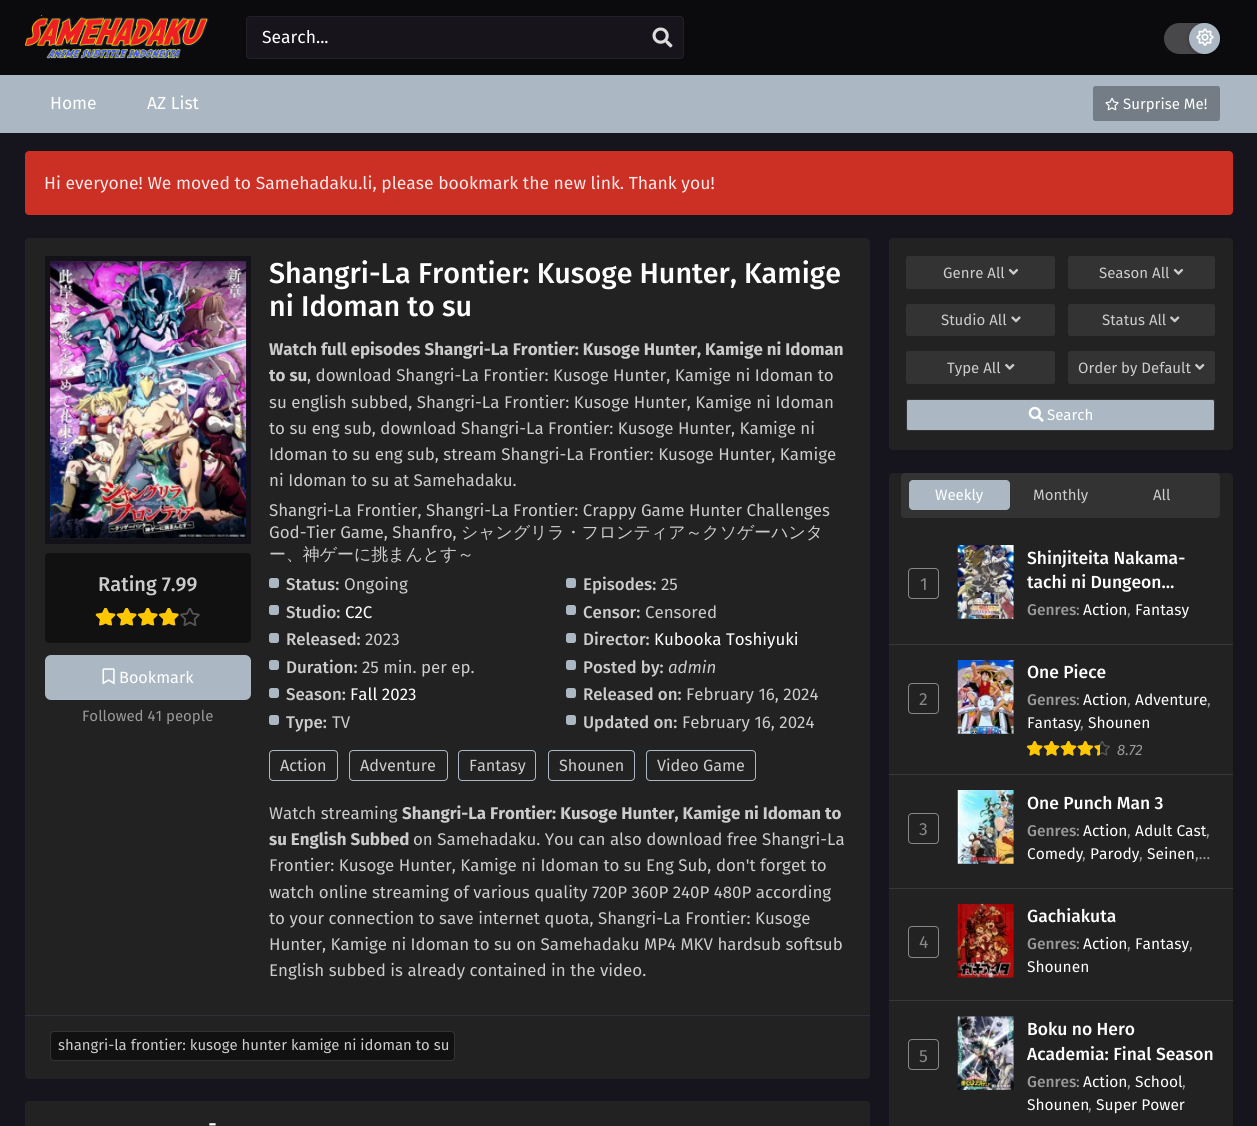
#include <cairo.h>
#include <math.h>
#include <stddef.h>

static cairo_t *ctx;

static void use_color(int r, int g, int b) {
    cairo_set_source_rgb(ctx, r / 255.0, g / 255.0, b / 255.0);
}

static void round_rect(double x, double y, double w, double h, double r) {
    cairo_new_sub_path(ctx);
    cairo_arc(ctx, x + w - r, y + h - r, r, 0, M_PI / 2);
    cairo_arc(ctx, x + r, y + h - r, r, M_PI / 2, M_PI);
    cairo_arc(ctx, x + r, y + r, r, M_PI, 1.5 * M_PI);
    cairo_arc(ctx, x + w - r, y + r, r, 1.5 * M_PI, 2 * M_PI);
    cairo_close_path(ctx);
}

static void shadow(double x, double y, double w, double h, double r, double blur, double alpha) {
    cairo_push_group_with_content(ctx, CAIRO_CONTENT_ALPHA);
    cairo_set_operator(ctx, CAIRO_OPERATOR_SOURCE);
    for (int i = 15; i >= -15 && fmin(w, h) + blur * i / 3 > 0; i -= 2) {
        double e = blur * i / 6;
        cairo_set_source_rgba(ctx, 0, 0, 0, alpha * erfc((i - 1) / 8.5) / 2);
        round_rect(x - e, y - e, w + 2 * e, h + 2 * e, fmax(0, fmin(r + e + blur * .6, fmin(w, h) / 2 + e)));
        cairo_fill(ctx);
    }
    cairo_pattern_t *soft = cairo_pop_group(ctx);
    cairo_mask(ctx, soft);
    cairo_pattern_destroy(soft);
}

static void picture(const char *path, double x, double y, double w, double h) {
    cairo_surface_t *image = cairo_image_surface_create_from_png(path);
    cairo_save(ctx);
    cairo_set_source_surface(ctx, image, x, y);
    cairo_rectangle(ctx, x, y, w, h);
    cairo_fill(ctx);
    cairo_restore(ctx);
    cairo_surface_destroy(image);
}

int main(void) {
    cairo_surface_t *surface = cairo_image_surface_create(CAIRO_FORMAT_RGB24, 1257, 1126);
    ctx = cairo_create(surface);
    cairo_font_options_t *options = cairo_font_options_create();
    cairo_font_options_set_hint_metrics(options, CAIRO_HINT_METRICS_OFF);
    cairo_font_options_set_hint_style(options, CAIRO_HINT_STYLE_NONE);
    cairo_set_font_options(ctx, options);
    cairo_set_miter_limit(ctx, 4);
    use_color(22, 21, 29);
    cairo_paint(ctx);
    use_color(11, 10, 13);
    cairo_rectangle(ctx, 0, 0, 1257, 75);
    cairo_fill(ctx);
    picture("img1.png", 25, 15, 184, 44);
    use_color(23, 21, 27);
    round_rect(246.5, 16.5, 437, 42, 3.5);
    cairo_fill_preserve(ctx);
    use_color(35, 32, 42);
    cairo_set_line_width(ctx, 1);
    cairo_stroke(ctx);
    cairo_select_font_face(ctx, "Fira Sans", CAIRO_FONT_SLANT_NORMAL, CAIRO_FONT_WEIGHT_NORMAL);
    cairo_set_font_size(ctx, 17.5);
    use_color(255, 255, 255);
    cairo_move_to(ctx, 262, 43);
    cairo_show_text(ctx, "Search...");
    picture("img2.png", 652, 27, 21, 21);
    use_color(72, 71, 74);
    round_rect(1164, 23, 56, 31, 15.5);
    cairo_fill(ctx);
    use_color(0, 0, 0);
    shadow(1189, 24, 31, 31, 15.5, 2, 0.3);
    use_color(171, 184, 195);
    cairo_arc(ctx, 1204.5, 38.5, 15.5, 0, 2 * M_PI);
    cairo_fill(ctx);
    picture("img3.png", 1196, 28, 18, 18);
    cairo_rectangle(ctx, 0, 75, 1257, 58);
    cairo_fill(ctx);
    use_color(255, 255, 255);
    cairo_move_to(ctx, 50, 109);
    cairo_show_text(ctx, "Home");
    cairo_move_to(ctx, 147, 109);
    cairo_show_text(ctx, "AZ List");
    use_color(116, 125, 133);
    round_rect(1093, 86, 127, 35, 2.5);
    cairo_fill(ctx);
    picture("img4.png", 1105, 97, 14, 14);
    cairo_set_font_size(ctx, 15);
    use_color(255, 255, 255);
    cairo_move_to(ctx, 1123, 109);
    cairo_show_text(ctx, "Surprise Me!");
    use_color(204, 47, 36);
    round_rect(25, 151, 1208, 64, 4);
    cairo_fill(ctx);
    cairo_set_font_size(ctx, 17.5);
    use_color(255, 233, 233);
    cairo_move_to(ctx, 44, 189);
    cairo_show_text(ctx, "Hi everyone! We moved to Samehadaku.li, please bookmark the new link. Thank you!");
    use_color(34, 34, 34);
    round_rect(25, 238, 845, 841, 4);
    cairo_fill(ctx);
    cairo_rectangle(ctx, 47.5, 258.5, 201, 283);
    use_color(20, 18, 25);
    cairo_set_line_width(ctx, 5);
    cairo_stroke(ctx);
    picture("img5.png", 50, 261, 197, 278);
    use_color(17, 17, 17);
    round_rect(45, 553, 206, 90, 4);
    cairo_fill(ctx);
    cairo_select_font_face(ctx, "Fira Sans Medium", CAIRO_FONT_SLANT_NORMAL, CAIRO_FONT_WEIGHT_NORMAL);
    cairo_set_font_size(ctx, 20);
    use_color(204, 204, 204);
    cairo_move_to(ctx, 98, 591);
    cairo_show_text(ctx, "Rating 7.99");
    picture("img6.png", 95, 608, 105, 18);
    picture("img7.png", 95, 608, 84, 17);
    use_color(171, 184, 195);
    round_rect(45, 655, 206, 45, 6);
    cairo_fill(ctx);
    picture("img8.png", 102, 668, 13, 17);
    cairo_select_font_face(ctx, "Fira Sans", CAIRO_FONT_SLANT_NORMAL, CAIRO_FONT_WEIGHT_NORMAL);
    cairo_set_font_size(ctx, 16.25);
    use_color(255, 255, 255);
    cairo_move_to(ctx, 119, 683);
    cairo_show_text(ctx, "Bookmark");
    cairo_set_font_size(ctx, 15);
    use_color(153, 153, 153);
    cairo_move_to(ctx, 82, 721);
    cairo_show_text(ctx, "Followed 41 people");
    cairo_select_font_face(ctx, "Fira Sans Medium", CAIRO_FONT_SLANT_NORMAL, CAIRO_FONT_WEIGHT_NORMAL);
    cairo_set_font_size(ctx, 28.7);
    use_color(255, 255, 255);
    cairo_move_to(ctx, 269, 283);
    cairo_show_text(ctx, "Shangri-La Frontier: Kusoge Hunter, Kamige");
    cairo_move_to(ctx, 269, 316);
    cairo_show_text(ctx, "ni Idoman to su");
    cairo_select_font_face(ctx, "Fira Sans", CAIRO_FONT_SLANT_NORMAL, CAIRO_FONT_WEIGHT_BOLD);
    cairo_set_font_size(ctx, 16.9);
    use_color(204, 204, 204);
    cairo_move_to(ctx, 269, 355);
    cairo_show_text(ctx, "Watch full episodes Shangri-La Frontier: Kusoge Hunter, Kamige ni Idoman");
    cairo_move_to(ctx, 269, 381);
    cairo_show_text(ctx, "to su");
    cairo_select_font_face(ctx, "Fira Sans", CAIRO_FONT_SLANT_NORMAL, CAIRO_FONT_WEIGHT_NORMAL);
    cairo_move_to(ctx, 307, 381);
    cairo_show_text(ctx, ", download Shangri-La Frontier: Kusoge Hunter, Kamige ni Idoman to");
    cairo_move_to(ctx, 269, 408);
    cairo_show_text(ctx, "su english subbed, Shangri-La Frontier: Kusoge Hunter, Kamige ni Idoman");
    cairo_move_to(ctx, 269, 434);
    cairo_show_text(ctx, "to su eng sub, download Shangri-La Frontier: Kusoge Hunter, Kamige ni");
    cairo_move_to(ctx, 269, 460);
    cairo_show_text(ctx, "Idoman to su eng sub, stream Shangri-La Frontier: Kusoge Hunter, Kamige");
    cairo_move_to(ctx, 269, 486);
    cairo_show_text(ctx, "ni Idoman to su at Samehadaku.");
    cairo_move_to(ctx, 269, 516);
    cairo_show_text(ctx, "Shangri-La Frontier, Shangri-La Frontier: Crappy Game Hunter Challenges");
    cairo_move_to(ctx, 269, 538);
    cairo_show_text(ctx, "God-Tier Game, Shanfro,");
    cairo_select_font_face(ctx, "WenQuanYi Zen Hei Medium", CAIRO_FONT_SLANT_NORMAL, CAIRO_FONT_WEIGHT_NORMAL);
    cairo_move_to(ctx, 461, 538);
    cairo_show_text(ctx, "シャングリラ・フロンティア～クソゲーハンタ");
    cairo_move_to(ctx, 269, 560);
    cairo_show_text(ctx, "ー、神ゲーに挑まんとす～");
    use_color(171, 184, 195);
    round_rect(269, 578, 10, 10, 2.5);
    cairo_fill(ctx);
    cairo_select_font_face(ctx, "Fira Sans Medium", CAIRO_FONT_SLANT_NORMAL, CAIRO_FONT_WEIGHT_NORMAL);
    use_color(204, 204, 204);
    cairo_move_to(ctx, 286, 590);
    cairo_show_text(ctx, "Status:");
    cairo_select_font_face(ctx, "Fira Sans", CAIRO_FONT_SLANT_NORMAL, CAIRO_FONT_WEIGHT_NORMAL);
    cairo_move_to(ctx, 344, 590);
    cairo_show_text(ctx, "Ongoing");
    use_color(171, 184, 195);
    round_rect(566, 578, 10, 10, 2.5);
    cairo_fill(ctx);
    cairo_select_font_face(ctx, "Fira Sans Medium", CAIRO_FONT_SLANT_NORMAL, CAIRO_FONT_WEIGHT_NORMAL);
    use_color(204, 204, 204);
    cairo_move_to(ctx, 583, 590);
    cairo_show_text(ctx, "Episodes:");
    cairo_select_font_face(ctx, "Fira Sans", CAIRO_FONT_SLANT_NORMAL, CAIRO_FONT_WEIGHT_NORMAL);
    cairo_move_to(ctx, 661, 590);
    cairo_show_text(ctx, "25");
    use_color(171, 184, 195);
    round_rect(269, 605, 10, 10, 2.5);
    cairo_fill(ctx);
    cairo_select_font_face(ctx, "Fira Sans Medium", CAIRO_FONT_SLANT_NORMAL, CAIRO_FONT_WEIGHT_NORMAL);
    use_color(204, 204, 204);
    cairo_move_to(ctx, 286, 618);
    cairo_show_text(ctx, "Studio:");
    cairo_select_font_face(ctx, "Fira Sans", CAIRO_FONT_SLANT_NORMAL, CAIRO_FONT_WEIGHT_NORMAL);
    use_color(255, 255, 255);
    cairo_move_to(ctx, 345, 618);
    cairo_show_text(ctx, "C2C");
    use_color(171, 184, 195);
    round_rect(566, 605, 10, 10, 2.5);
    cairo_fill(ctx);
    cairo_select_font_face(ctx, "Fira Sans Medium", CAIRO_FONT_SLANT_NORMAL, CAIRO_FONT_WEIGHT_NORMAL);
    use_color(204, 204, 204);
    cairo_move_to(ctx, 583, 618);
    cairo_show_text(ctx, "Censor:");
    cairo_select_font_face(ctx, "Fira Sans", CAIRO_FONT_SLANT_NORMAL, CAIRO_FONT_WEIGHT_NORMAL);
    cairo_move_to(ctx, 645, 618);
    cairo_show_text(ctx, "Censored");
    use_color(171, 184, 195);
    round_rect(269, 633, 10, 10, 2.5);
    cairo_fill(ctx);
    cairo_select_font_face(ctx, "Fira Sans Medium", CAIRO_FONT_SLANT_NORMAL, CAIRO_FONT_WEIGHT_NORMAL);
    use_color(204, 204, 204);
    cairo_move_to(ctx, 286, 645);
    cairo_show_text(ctx, "Released:");
    cairo_select_font_face(ctx, "Fira Sans", CAIRO_FONT_SLANT_NORMAL, CAIRO_FONT_WEIGHT_NORMAL);
    cairo_move_to(ctx, 365, 645);
    cairo_show_text(ctx, "2023");
    use_color(171, 184, 195);
    round_rect(566, 633, 10, 10, 2.5);
    cairo_fill(ctx);
    cairo_select_font_face(ctx, "Fira Sans Medium", CAIRO_FONT_SLANT_NORMAL, CAIRO_FONT_WEIGHT_NORMAL);
    use_color(204, 204, 204);
    cairo_move_to(ctx, 583, 645);
    cairo_show_text(ctx, "Director:");
    cairo_select_font_face(ctx, "Fira Sans", CAIRO_FONT_SLANT_NORMAL, CAIRO_FONT_WEIGHT_NORMAL);
    use_color(255, 255, 255);
    cairo_move_to(ctx, 654, 645);
    cairo_show_text(ctx, "Kubooka Toshiyuki");
    use_color(171, 184, 195);
    round_rect(269, 660, 10, 10, 2.5);
    cairo_fill(ctx);
    cairo_select_font_face(ctx, "Fira Sans Medium", CAIRO_FONT_SLANT_NORMAL, CAIRO_FONT_WEIGHT_NORMAL);
    use_color(204, 204, 204);
    cairo_move_to(ctx, 286, 673);
    cairo_show_text(ctx, "Duration:");
    cairo_select_font_face(ctx, "Fira Sans", CAIRO_FONT_SLANT_NORMAL, CAIRO_FONT_WEIGHT_NORMAL);
    cairo_move_to(ctx, 362, 673);
    cairo_show_text(ctx, "25 min. per ep.");
    use_color(171, 184, 195);
    round_rect(566, 660, 10, 10, 2.5);
    cairo_fill(ctx);
    cairo_select_font_face(ctx, "Fira Sans Medium", CAIRO_FONT_SLANT_NORMAL, CAIRO_FONT_WEIGHT_NORMAL);
    use_color(204, 204, 204);
    cairo_move_to(ctx, 583, 673);
    cairo_show_text(ctx, "Posted by:");
    cairo_select_font_face(ctx, "Fira Sans", CAIRO_FONT_SLANT_ITALIC, CAIRO_FONT_WEIGHT_NORMAL);
    cairo_move_to(ctx, 668, 673);
    cairo_show_text(ctx, "admin");
    use_color(171, 184, 195);
    round_rect(269, 688, 10, 10, 2.5);
    cairo_fill(ctx);
    cairo_select_font_face(ctx, "Fira Sans Medium", CAIRO_FONT_SLANT_NORMAL, CAIRO_FONT_WEIGHT_NORMAL);
    use_color(204, 204, 204);
    cairo_move_to(ctx, 286, 700);
    cairo_show_text(ctx, "Season:");
    cairo_select_font_face(ctx, "Fira Sans", CAIRO_FONT_SLANT_NORMAL, CAIRO_FONT_WEIGHT_NORMAL);
    use_color(255, 255, 255);
    cairo_move_to(ctx, 350, 700);
    cairo_show_text(ctx, "Fall 2023");
    use_color(171, 184, 195);
    round_rect(566, 688, 10, 10, 2.5);
    cairo_fill(ctx);
    cairo_select_font_face(ctx, "Fira Sans Medium", CAIRO_FONT_SLANT_NORMAL, CAIRO_FONT_WEIGHT_NORMAL);
    use_color(204, 204, 204);
    cairo_move_to(ctx, 583, 700);
    cairo_show_text(ctx, "Released on:");
    cairo_select_font_face(ctx, "Fira Sans", CAIRO_FONT_SLANT_NORMAL, CAIRO_FONT_WEIGHT_NORMAL);
    cairo_move_to(ctx, 686, 700);
    cairo_show_text(ctx, "February 16, 2024");
    use_color(171, 184, 195);
    round_rect(269, 715, 10, 10, 2.5);
    cairo_fill(ctx);
    cairo_select_font_face(ctx, "Fira Sans Medium", CAIRO_FONT_SLANT_NORMAL, CAIRO_FONT_WEIGHT_NORMAL);
    use_color(204, 204, 204);
    cairo_move_to(ctx, 286, 728);
    cairo_show_text(ctx, "Type:");
    cairo_select_font_face(ctx, "Fira Sans", CAIRO_FONT_SLANT_NORMAL, CAIRO_FONT_WEIGHT_NORMAL);
    cairo_move_to(ctx, 332, 728);
    cairo_show_text(ctx, "TV");
    use_color(171, 184, 195);
    round_rect(566, 715, 10, 10, 2.5);
    cairo_fill(ctx);
    cairo_select_font_face(ctx, "Fira Sans Medium", CAIRO_FONT_SLANT_NORMAL, CAIRO_FONT_WEIGHT_NORMAL);
    use_color(204, 204, 204);
    cairo_move_to(ctx, 583, 728);
    cairo_show_text(ctx, "Updated on:");
    cairo_select_font_face(ctx, "Fira Sans", CAIRO_FONT_SLANT_NORMAL, CAIRO_FONT_WEIGHT_NORMAL);
    cairo_move_to(ctx, 682, 728);
    cairo_show_text(ctx, "February 16, 2024");
    round_rect(269.5, 750.5, 68, 30, 3.5);
    use_color(171, 184, 195);
    cairo_set_line_width(ctx, 1);
    cairo_stroke(ctx);
    cairo_set_font_size(ctx, 16.25);
    use_color(204, 204, 204);
    cairo_move_to(ctx, 280, 771);
    cairo_show_text(ctx, "Action");
    round_rect(349.5, 750.5, 98, 30, 3.5);
    use_color(171, 184, 195);
    cairo_stroke(ctx);
    use_color(204, 204, 204);
    cairo_move_to(ctx, 360, 771);
    cairo_show_text(ctx, "Adventure");
    round_rect(458.5, 750.5, 77, 30, 3.5);
    use_color(171, 184, 195);
    cairo_stroke(ctx);
    use_color(204, 204, 204);
    cairo_move_to(ctx, 469, 771);
    cairo_show_text(ctx, "Fantasy");
    round_rect(548.5, 750.5, 86, 30, 3.5);
    use_color(171, 184, 195);
    cairo_stroke(ctx);
    use_color(204, 204, 204);
    cairo_move_to(ctx, 559, 771);
    cairo_show_text(ctx, "Shounen");
    round_rect(646.5, 750.5, 109, 30, 3.5);
    use_color(171, 184, 195);
    cairo_stroke(ctx);
    use_color(204, 204, 204);
    cairo_move_to(ctx, 657, 771);
    cairo_show_text(ctx, "Video Game");
    cairo_set_font_size(ctx, 16.9);
    cairo_move_to(ctx, 269, 819);
    cairo_show_text(ctx, "Watch streaming");
    cairo_select_font_face(ctx, "Fira Sans", CAIRO_FONT_SLANT_NORMAL, CAIRO_FONT_WEIGHT_BOLD);
    cairo_move_to(ctx, 402, 819);
    cairo_show_text(ctx, "Shangri-La Frontier: Kusoge Hunter, Kamige ni Idoman to");
    cairo_move_to(ctx, 269, 845);
    cairo_show_text(ctx, "su English Subbed");
    cairo_select_font_face(ctx, "Fira Sans", CAIRO_FONT_SLANT_NORMAL, CAIRO_FONT_WEIGHT_NORMAL);
    cairo_move_to(ctx, 413, 845);
    cairo_show_text(ctx, "on Samehadaku. You can also download free Shangri-La");
    cairo_move_to(ctx, 269, 871);
    cairo_show_text(ctx, "Frontier: Kusoge Hunter, Kamige ni Idoman to su Eng Sub, don't forget to");
    cairo_move_to(ctx, 269, 898);
    cairo_show_text(ctx, "watch online streaming of various quality 720P 360P 240P 480P according");
    cairo_move_to(ctx, 269, 924);
    cairo_show_text(ctx, "to your connection to save internet quota, Shangri-La Frontier: Kusoge");
    cairo_move_to(ctx, 269, 950);
    cairo_show_text(ctx, "Hunter, Kamige ni Idoman to su on Samehadaku MP4 MKV hardsub softsub");
    cairo_move_to(ctx, 269, 976);
    cairo_show_text(ctx, "English subbed is already contained in the video.");
    use_color(49, 47, 64);
    cairo_rectangle(ctx, 25, 1015, 845, 1);
    cairo_fill(ctx);
    use_color(17, 17, 17);
    round_rect(50.5, 1031.5, 404, 29, 3.5);
    cairo_fill_preserve(ctx);
    use_color(51, 51, 51);
    cairo_stroke(ctx);
    cairo_set_font_size(ctx, 14.9);
    use_color(204, 204, 204);
    cairo_move_to(ctx, 58, 1050);
    cairo_show_text(ctx, "shangri-la frontier: kusoge hunter kamige ni idoman to su");
    use_color(34, 34, 34);
    round_rect(25, 1101, 845, 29, 4);
    cairo_fill(ctx);
    cairo_select_font_face(ctx, "Inter", CAIRO_FONT_SLANT_NORMAL, CAIRO_FONT_WEIGHT_BOLD);
    cairo_set_font_size(ctx, 19);
    use_color(255, 255, 255);
    cairo_move_to(ctx, 208, 1130);
    cairo_show_text(ctx, "-");
    use_color(34, 34, 34);
    round_rect(889, 238, 344, 212, 4);
    cairo_fill(ctx);
    use_color(51, 51, 51);
    round_rect(906.5, 256.5, 148, 32, 2);
    cairo_fill_preserve(ctx);
    cairo_stroke(ctx);
    cairo_select_font_face(ctx, "Fira Sans", CAIRO_FONT_SLANT_NORMAL, CAIRO_FONT_WEIGHT_NORMAL);
    cairo_set_font_size(ctx, 15);
    use_color(204, 204, 204);
    cairo_move_to(ctx, 943, 278);
    cairo_show_text(ctx, "Genre All");
    picture("img9.png", 1008, 268, 11, 7);
    use_color(51, 51, 51);
    round_rect(1068.5, 256.5, 146, 32, 2);
    cairo_fill_preserve(ctx);
    cairo_stroke(ctx);
    use_color(204, 204, 204);
    cairo_move_to(ctx, 1099, 278);
    cairo_show_text(ctx, "Season All");
    picture("img9.png", 1173, 268, 11, 7);
    use_color(51, 51, 51);
    round_rect(906.5, 304.5, 148, 31, 2);
    cairo_fill_preserve(ctx);
    cairo_stroke(ctx);
    use_color(204, 204, 204);
    cairo_move_to(ctx, 941, 325);
    cairo_show_text(ctx, "Studio All");
    picture("img10.png", 1011, 316, 10, 7);
    use_color(51, 51, 51);
    round_rect(1068.5, 304.5, 146, 31, 2);
    cairo_fill_preserve(ctx);
    cairo_stroke(ctx);
    use_color(204, 204, 204);
    cairo_move_to(ctx, 1102, 325);
    cairo_show_text(ctx, "Status All");
    picture("img11.png", 1170, 316, 10, 7);
    use_color(51, 51, 51);
    round_rect(906.5, 351.5, 148, 32, 2);
    cairo_fill_preserve(ctx);
    cairo_stroke(ctx);
    use_color(204, 204, 204);
    cairo_move_to(ctx, 947, 373);
    cairo_show_text(ctx, "Type All");
    picture("img12.png", 1005, 363, 10, 7);
    use_color(51, 51, 51);
    round_rect(1068.5, 351.5, 146, 32, 2);
    cairo_fill_preserve(ctx);
    cairo_stroke(ctx);
    use_color(204, 204, 204);
    cairo_move_to(ctx, 1078, 373);
    cairo_show_text(ctx, "Order by Default");
    picture("img12.png", 1195, 363, 10, 7);
    use_color(171, 184, 195);
    round_rect(906.5, 399.5, 308, 31, 2);
    cairo_fill_preserve(ctx);
    use_color(51, 51, 51);
    cairo_stroke(ctx);
    picture("img13.png", 1028, 406, 16, 16);
    use_color(255, 255, 255);
    cairo_move_to(ctx, 1047, 420);
    cairo_show_text(ctx, "Search");
    use_color(34, 34, 34);
    round_rect(889, 473, 344, 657, 4);
    cairo_fill(ctx);
    use_color(51, 51, 51);
    round_rect(901, 473, 319, 45, 4);
    cairo_fill(ctx);
    use_color(171, 184, 195);
    round_rect(909, 480, 101, 30, 4);
    cairo_fill(ctx);
    use_color(255, 255, 255);
    cairo_move_to(ctx, 935, 500);
    cairo_show_text(ctx, "Weekly");
    use_color(204, 204, 204);
    cairo_move_to(ctx, 1033, 500);
    cairo_show_text(ctx, "Monthly");
    cairo_move_to(ctx, 1153, 500);
    cairo_show_text(ctx, "All");
    use_color(56, 56, 56);
    cairo_rectangle(ctx, 889, 644, 344, 1);
    cairo_fill(ctx);
    round_rect(908.5, 568.5, 30, 30, 3.5);
    use_color(136, 136, 136);
    cairo_stroke(ctx);
    cairo_set_font_size(ctx, 17.5);
    cairo_move_to(ctx, 920, 590);
    cairo_show_text(ctx, "1");
    picture("img14.png", 957, 545, 57, 74);
    cairo_select_font_face(ctx, "Fira Sans Medium", CAIRO_FONT_SLANT_NORMAL, CAIRO_FONT_WEIGHT_NORMAL);
    use_color(255, 255, 255);
    cairo_move_to(ctx, 1027, 564);
    cairo_show_text(ctx, "Shinjiteita Nakama-");
    cairo_move_to(ctx, 1027, 588);
    cairo_show_text(ctx, "tachi ni Dungeon…");
    cairo_set_font_size(ctx, 15.5);
    use_color(153, 153, 153);
    cairo_move_to(ctx, 1027, 615);
    cairo_show_text(ctx, "Genres");
    cairo_select_font_face(ctx, "Fira Sans", CAIRO_FONT_SLANT_NORMAL, CAIRO_FONT_WEIGHT_NORMAL);
    cairo_move_to(ctx, 1076, 615);
    cairo_show_text(ctx, ":");
    use_color(255, 255, 255);
    cairo_move_to(ctx, 1083, 615);
    cairo_show_text(ctx, "Action");
    use_color(153, 153, 153);
    cairo_move_to(ctx, 1127, 615);
    cairo_show_text(ctx, ",");
    use_color(255, 255, 255);
    cairo_move_to(ctx, 1135, 615);
    cairo_show_text(ctx, "Fantasy");
    use_color(56, 56, 56);
    cairo_rectangle(ctx, 889, 774, 344, 1);
    cairo_fill(ctx);
    round_rect(908.5, 683.5, 30, 30, 3.5);
    use_color(136, 136, 136);
    cairo_stroke(ctx);
    cairo_set_font_size(ctx, 17.5);
    cairo_move_to(ctx, 919, 705);
    cairo_show_text(ctx, "2");
    picture("img15.png", 957, 660, 57, 74);
    cairo_select_font_face(ctx, "Fira Sans Medium", CAIRO_FONT_SLANT_NORMAL, CAIRO_FONT_WEIGHT_NORMAL);
    use_color(255, 255, 255);
    cairo_move_to(ctx, 1027, 678);
    cairo_show_text(ctx, "One Piece");
    cairo_set_font_size(ctx, 15.5);
    use_color(153, 153, 153);
    cairo_move_to(ctx, 1027, 705);
    cairo_show_text(ctx, "Genres");
    cairo_select_font_face(ctx, "Fira Sans", CAIRO_FONT_SLANT_NORMAL, CAIRO_FONT_WEIGHT_NORMAL);
    cairo_move_to(ctx, 1076, 705);
    cairo_show_text(ctx, ":");
    use_color(255, 255, 255);
    cairo_move_to(ctx, 1083, 705);
    cairo_show_text(ctx, "Action");
    use_color(153, 153, 153);
    cairo_move_to(ctx, 1127, 705);
    cairo_show_text(ctx, ",");
    use_color(255, 255, 255);
    cairo_move_to(ctx, 1135, 705);
    cairo_show_text(ctx, "Adventure");
    use_color(153, 153, 153);
    cairo_move_to(ctx, 1207, 705);
    cairo_show_text(ctx, ",");
    use_color(255, 255, 255);
    cairo_move_to(ctx, 1027, 728);
    cairo_show_text(ctx, "Fantasy");
    use_color(153, 153, 153);
    cairo_move_to(ctx, 1080, 728);
    cairo_show_text(ctx, ",");
    use_color(255, 255, 255);
    cairo_move_to(ctx, 1088, 728);
    cairo_show_text(ctx, "Shounen");
    picture("img16.png", 1026, 741, 84, 15);
    picture("img17.png", 1026, 741, 74, 15);
    cairo_select_font_face(ctx, "Fira Sans", CAIRO_FONT_SLANT_ITALIC, CAIRO_FONT_WEIGHT_NORMAL);
    cairo_set_font_size(ctx, 15);
    use_color(153, 153, 153);
    cairo_move_to(ctx, 1117, 755);
    cairo_show_text(ctx, "8.72");
    use_color(56, 56, 56);
    cairo_rectangle(ctx, 889, 888, 344, 1);
    cairo_fill(ctx);
    round_rect(908.5, 813.5, 30, 30, 3.5);
    use_color(136, 136, 136);
    cairo_stroke(ctx);
    cairo_select_font_face(ctx, "Fira Sans", CAIRO_FONT_SLANT_NORMAL, CAIRO_FONT_WEIGHT_NORMAL);
    cairo_set_font_size(ctx, 17.5);
    cairo_move_to(ctx, 919, 835);
    cairo_show_text(ctx, "3");
    picture("img18.png", 957, 790, 57, 74);
    cairo_select_font_face(ctx, "Fira Sans Medium", CAIRO_FONT_SLANT_NORMAL, CAIRO_FONT_WEIGHT_NORMAL);
    use_color(255, 255, 255);
    cairo_move_to(ctx, 1027, 809);
    cairo_show_text(ctx, "One Punch Man 3");
    cairo_set_font_size(ctx, 15.5);
    use_color(153, 153, 153);
    cairo_move_to(ctx, 1027, 836);
    cairo_show_text(ctx, "Genres");
    cairo_select_font_face(ctx, "Fira Sans", CAIRO_FONT_SLANT_NORMAL, CAIRO_FONT_WEIGHT_NORMAL);
    cairo_move_to(ctx, 1076, 836);
    cairo_show_text(ctx, ":");
    use_color(255, 255, 255);
    cairo_move_to(ctx, 1083, 836);
    cairo_show_text(ctx, "Action");
    use_color(153, 153, 153);
    cairo_move_to(ctx, 1127, 836);
    cairo_show_text(ctx, ",");
    use_color(255, 255, 255);
    cairo_move_to(ctx, 1135, 836);
    cairo_show_text(ctx, "Adult Cast");
    use_color(153, 153, 153);
    cairo_move_to(ctx, 1206, 836);
    cairo_show_text(ctx, ",");
    use_color(255, 255, 255);
    cairo_move_to(ctx, 1027, 859);
    cairo_show_text(ctx, "Comedy");
    use_color(153, 153, 153);
    cairo_move_to(ctx, 1082, 859);
    cairo_show_text(ctx, ",");
    use_color(255, 255, 255);
    cairo_move_to(ctx, 1090, 859);
    cairo_show_text(ctx, "Parody");
    use_color(153, 153, 153);
    cairo_move_to(ctx, 1139, 859);
    cairo_show_text(ctx, ",");
    use_color(255, 255, 255);
    cairo_move_to(ctx, 1147, 859);
    cairo_show_text(ctx, "Seinen");
    use_color(153, 153, 153);
    cairo_move_to(ctx, 1195, 859);
    cairo_show_text(ctx, ",…");
    use_color(56, 56, 56);
    cairo_rectangle(ctx, 889, 1000, 344, 1);
    cairo_fill(ctx);
    round_rect(908.5, 926.5, 30, 31, 3.5);
    use_color(136, 136, 136);
    cairo_stroke(ctx);
    cairo_set_font_size(ctx, 17.5);
    cairo_move_to(ctx, 919, 948);
    cairo_show_text(ctx, "4");
    picture("img19.png", 957, 903, 57, 75);
    cairo_select_font_face(ctx, "Fira Sans Medium", CAIRO_FONT_SLANT_NORMAL, CAIRO_FONT_WEIGHT_NORMAL);
    use_color(255, 255, 255);
    cairo_move_to(ctx, 1027, 922);
    cairo_show_text(ctx, "Gachiakuta");
    cairo_set_font_size(ctx, 15.5);
    use_color(153, 153, 153);
    cairo_move_to(ctx, 1027, 949);
    cairo_show_text(ctx, "Genres");
    cairo_select_font_face(ctx, "Fira Sans", CAIRO_FONT_SLANT_NORMAL, CAIRO_FONT_WEIGHT_NORMAL);
    cairo_move_to(ctx, 1076, 949);
    cairo_show_text(ctx, ":");
    use_color(255, 255, 255);
    cairo_move_to(ctx, 1083, 949);
    cairo_show_text(ctx, "Action");
    use_color(153, 153, 153);
    cairo_move_to(ctx, 1127, 949);
    cairo_show_text(ctx, ",");
    use_color(255, 255, 255);
    cairo_move_to(ctx, 1135, 949);
    cairo_show_text(ctx, "Fantasy");
    use_color(153, 153, 153);
    cairo_move_to(ctx, 1189, 949);
    cairo_show_text(ctx, ",");
    use_color(255, 255, 255);
    cairo_move_to(ctx, 1027, 972);
    cairo_show_text(ctx, "Shounen");
    round_rect(908.5, 1039.5, 30, 30, 3.5);
    use_color(136, 136, 136);
    cairo_stroke(ctx);
    cairo_set_font_size(ctx, 17.5);
    cairo_move_to(ctx, 919, 1062);
    cairo_show_text(ctx, "5");
    picture("img20.png", 957, 1016, 57, 74);
    cairo_select_font_face(ctx, "Fira Sans Medium", CAIRO_FONT_SLANT_NORMAL, CAIRO_FONT_WEIGHT_NORMAL);
    use_color(255, 255, 255);
    cairo_move_to(ctx, 1027, 1035);
    cairo_show_text(ctx, "Boku no Hero");
    cairo_move_to(ctx, 1027, 1060);
    cairo_show_text(ctx, "Academia: Final Season");
    cairo_set_font_size(ctx, 15.5);
    use_color(153, 153, 153);
    cairo_move_to(ctx, 1027, 1087);
    cairo_show_text(ctx, "Genres");
    cairo_select_font_face(ctx, "Fira Sans", CAIRO_FONT_SLANT_NORMAL, CAIRO_FONT_WEIGHT_NORMAL);
    cairo_move_to(ctx, 1076, 1087);
    cairo_show_text(ctx, ":");
    use_color(255, 255, 255);
    cairo_move_to(ctx, 1083, 1087);
    cairo_show_text(ctx, "Action");
    use_color(153, 153, 153);
    cairo_move_to(ctx, 1127, 1087);
    cairo_show_text(ctx, ",");
    use_color(255, 255, 255);
    cairo_move_to(ctx, 1135, 1087);
    cairo_show_text(ctx, "School");
    use_color(153, 153, 153);
    cairo_move_to(ctx, 1182, 1087);
    cairo_show_text(ctx, ",");
    use_color(255, 255, 255);
    cairo_move_to(ctx, 1027, 1110);
    cairo_show_text(ctx, "Shounen");
    use_color(153, 153, 153);
    cairo_move_to(ctx, 1088, 1110);
    cairo_show_text(ctx, ",");
    use_color(255, 255, 255);
    cairo_move_to(ctx, 1096, 1110);
    cairo_show_text(ctx, "Super Power");
    cairo_surface_write_to_png(surface, "result.png");
    cairo_font_options_destroy(options);
    cairo_destroy(ctx);
    cairo_surface_destroy(surface);
    return 0;
}
